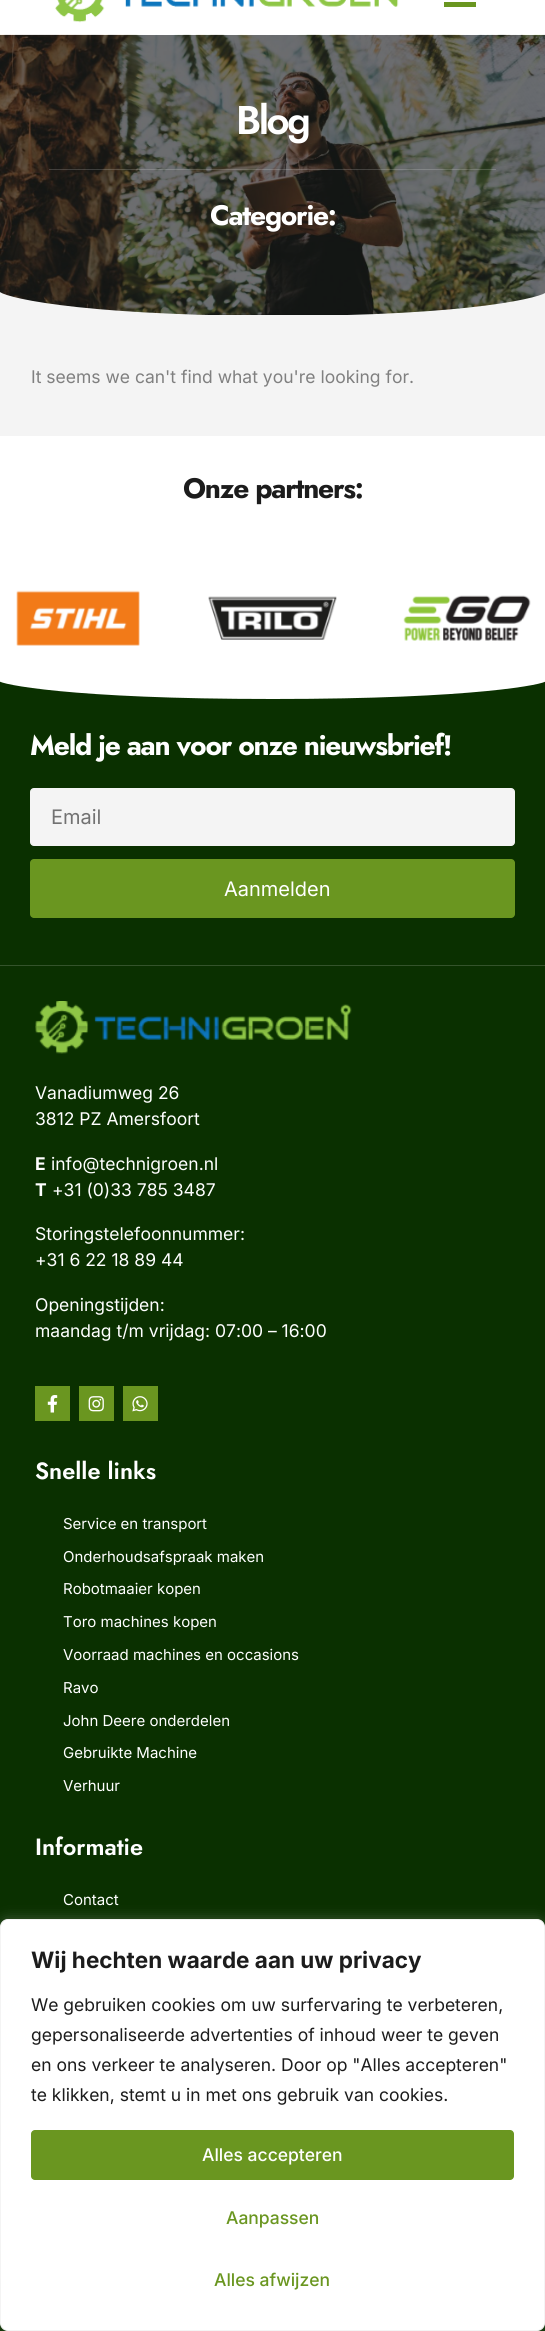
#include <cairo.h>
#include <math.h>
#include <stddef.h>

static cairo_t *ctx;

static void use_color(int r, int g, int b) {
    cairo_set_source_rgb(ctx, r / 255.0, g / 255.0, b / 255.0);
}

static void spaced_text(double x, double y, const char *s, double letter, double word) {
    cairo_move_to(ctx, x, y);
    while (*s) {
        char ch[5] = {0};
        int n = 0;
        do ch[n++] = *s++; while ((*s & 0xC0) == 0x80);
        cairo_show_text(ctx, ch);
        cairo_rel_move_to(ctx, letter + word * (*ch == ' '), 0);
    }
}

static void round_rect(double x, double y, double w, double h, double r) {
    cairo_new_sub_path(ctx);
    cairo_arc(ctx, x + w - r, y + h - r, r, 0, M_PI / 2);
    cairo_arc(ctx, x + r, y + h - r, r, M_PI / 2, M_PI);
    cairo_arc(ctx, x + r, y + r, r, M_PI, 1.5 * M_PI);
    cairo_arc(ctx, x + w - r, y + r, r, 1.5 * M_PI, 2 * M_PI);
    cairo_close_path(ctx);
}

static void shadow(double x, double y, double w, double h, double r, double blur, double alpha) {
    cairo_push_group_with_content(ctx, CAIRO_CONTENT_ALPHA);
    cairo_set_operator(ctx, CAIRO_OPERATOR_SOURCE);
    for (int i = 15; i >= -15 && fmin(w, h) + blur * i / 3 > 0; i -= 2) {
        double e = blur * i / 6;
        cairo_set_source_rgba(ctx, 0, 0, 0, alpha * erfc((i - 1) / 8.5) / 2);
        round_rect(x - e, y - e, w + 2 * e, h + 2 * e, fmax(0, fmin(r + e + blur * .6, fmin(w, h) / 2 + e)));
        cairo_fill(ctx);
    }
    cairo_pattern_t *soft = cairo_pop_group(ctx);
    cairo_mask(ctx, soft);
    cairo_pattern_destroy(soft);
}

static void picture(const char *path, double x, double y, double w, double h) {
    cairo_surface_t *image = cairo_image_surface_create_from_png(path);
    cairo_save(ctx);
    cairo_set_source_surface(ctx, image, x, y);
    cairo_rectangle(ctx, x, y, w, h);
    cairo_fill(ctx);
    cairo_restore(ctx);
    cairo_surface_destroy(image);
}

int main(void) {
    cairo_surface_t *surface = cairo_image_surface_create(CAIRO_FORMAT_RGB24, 545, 2331);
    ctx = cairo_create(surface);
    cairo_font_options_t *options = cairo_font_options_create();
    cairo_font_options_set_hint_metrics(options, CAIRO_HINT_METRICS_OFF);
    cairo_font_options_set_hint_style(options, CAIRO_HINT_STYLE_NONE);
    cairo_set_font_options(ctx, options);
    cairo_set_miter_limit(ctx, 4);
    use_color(244, 244, 244);
    cairo_paint(ctx);
    use_color(255, 255, 255);
    cairo_rectangle(ctx, 0, 0, 545, 35);
    cairo_fill(ctx);
    picture("img1.png", 55, 0, 344, 23);
    use_color(106, 150, 32);
    cairo_rectangle(ctx, 444, 2, 32, 5);
    cairo_fill(ctx);
    use_color(17, 17, 17);
    cairo_rectangle(ctx, 0, 35, 545, 280);
    cairo_fill(ctx);
    picture("img2.png", 0, 34, 545, 281);
    cairo_select_font_face(ctx, "Jost SemiBold", CAIRO_FONT_SLANT_NORMAL, CAIRO_FONT_WEIGHT_NORMAL);
    cairo_set_font_size(ctx, 40);
    use_color(255, 255, 255);
    spaced_text(236, 134, "Blog", -2.5, 0);
    cairo_set_source_rgba(ctx, 1, 1, 1, 0.17);
    cairo_rectangle(ctx, 49, 169, 447, 1);
    cairo_fill(ctx);
    cairo_select_font_face(ctx, "Jost", CAIRO_FONT_SLANT_NORMAL, CAIRO_FONT_WEIGHT_BOLD);
    cairo_set_font_size(ctx, 28.1);
    use_color(255, 255, 255);
    spaced_text(210, 225, "Categorie:", -1.25, 0);
    use_color(244, 244, 244);
    cairo_new_path(ctx);
    cairo_move_to(ctx, 273, 316);
    cairo_curve_to(ctx, 68, 315, 0, 296, -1, 291);
    cairo_line_to(ctx, -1, 316);
    cairo_line_to(ctx, 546, 316);
    cairo_line_to(ctx, 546, 292);
    cairo_curve_to(ctx, 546, 296, 477, 316, 273, 316);
    cairo_close_path(ctx);
    cairo_fill(ctx);
    cairo_select_font_face(ctx, "Inter", CAIRO_FONT_SLANT_NORMAL, CAIRO_FONT_WEIGHT_NORMAL);
    cairo_set_font_size(ctx, 17.5);
    use_color(128, 128, 128);
    cairo_move_to(ctx, 31, 383);
    cairo_show_text(ctx, "It seems we can't find what you're looking for.");
    use_color(255, 255, 255);
    cairo_rectangle(ctx, 0, 436, 545, 244);
    cairo_fill(ctx);
    cairo_select_font_face(ctx, "Jost", CAIRO_FONT_SLANT_NORMAL, CAIRO_FONT_WEIGHT_BOLD);
    cairo_set_font_size(ctx, 28.1);
    use_color(28, 28, 28);
    spaced_text(183, 498, "Onze partners:", -1.25, 0);
    picture("img3.png", 16, 590, 124, 56);
    picture("img4.png", 208, 596, 129, 44);
    picture("img5.png", 403, 595, 128, 46);
    use_color(10, 48, 0);
    cairo_rectangle(ctx, 0, 681, 545, 284);
    cairo_fill(ctx);
    use_color(52, 83, 43);
    cairo_rectangle(ctx, 0, 965, 545, 1);
    cairo_fill(ctx);
    use_color(255, 255, 255);
    cairo_new_path(ctx);
    cairo_move_to(ctx, 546, 681);
    cairo_line_to(ctx, 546, 680);
    cairo_line_to(ctx, -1, 680);
    cairo_line_to(ctx, -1, 681);
    cairo_curve_to(ctx, 0, 684, 68, 699, 273, 699);
    cairo_curve_to(ctx, 477, 699, 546, 684, 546, 681);
    cairo_close_path(ctx);
    cairo_fill(ctx);
    spaced_text(30, 755, "Meld je aan voor onze nieuwsbrief!", -1.25, 0);
    use_color(244, 244, 244);
    round_rect(30.5, 788.5, 484, 57, 3.5);
    cairo_fill_preserve(ctx);
    cairo_set_line_width(ctx, 1);
    cairo_stroke(ctx);
    cairo_select_font_face(ctx, "Inter", CAIRO_FONT_SLANT_NORMAL, CAIRO_FONT_WEIGHT_NORMAL);
    cairo_set_font_size(ctx, 20);
    use_color(114, 114, 114);
    cairo_move_to(ctx, 51, 824);
    cairo_show_text(ctx, "Email");
    use_color(106, 150, 32);
    round_rect(30, 859, 485, 59, 4);
    cairo_fill(ctx);
    use_color(255, 255, 255);
    cairo_move_to(ctx, 224, 896);
    cairo_show_text(ctx, "Aanmelden");
    use_color(10, 48, 0);
    cairo_rectangle(ctx, 0, 966, 545, 1365);
    cairo_fill(ctx);
    picture("img6.png", 35, 1001, 317, 53);
    cairo_set_font_size(ctx, 17.5);
    use_color(255, 255, 255);
    cairo_move_to(ctx, 35, 1099);
    cairo_show_text(ctx, "Vanadiumweg 26");
    cairo_move_to(ctx, 35, 1125);
    cairo_show_text(ctx, "3812 PZ Amersfoort");
    cairo_select_font_face(ctx, "Inter", CAIRO_FONT_SLANT_NORMAL, CAIRO_FONT_WEIGHT_BOLD);
    cairo_move_to(ctx, 35, 1170);
    cairo_show_text(ctx, "E");
    cairo_select_font_face(ctx, "Inter", CAIRO_FONT_SLANT_NORMAL, CAIRO_FONT_WEIGHT_NORMAL);
    cairo_move_to(ctx, 51, 1170);
    cairo_show_text(ctx, "info@technigroen.nl");
    cairo_select_font_face(ctx, "Inter", CAIRO_FONT_SLANT_NORMAL, CAIRO_FONT_WEIGHT_BOLD);
    cairo_move_to(ctx, 35, 1196);
    cairo_show_text(ctx, "T");
    cairo_select_font_face(ctx, "Inter", CAIRO_FONT_SLANT_NORMAL, CAIRO_FONT_WEIGHT_NORMAL);
    cairo_move_to(ctx, 52, 1196);
    cairo_show_text(ctx, "+31 (0)33 785 3487");
    cairo_move_to(ctx, 35, 1240);
    cairo_show_text(ctx, "Storingstelefoonnummer:");
    cairo_move_to(ctx, 35, 1266);
    cairo_show_text(ctx, "+31 6 22 18 89 44");
    cairo_move_to(ctx, 35, 1311);
    cairo_show_text(ctx, "Openingstijden:");
    cairo_move_to(ctx, 35, 1337);
    cairo_show_text(ctx, "maandag t/m vrijdag: 07:00 – 16:00");
    use_color(106, 150, 32);
    cairo_rectangle(ctx, 35, 1386, 35, 35);
    cairo_fill(ctx);
    picture("img7.png", 47, 1395, 11, 18);
    cairo_rectangle(ctx, 79, 1386, 35, 35);
    cairo_fill(ctx);
    picture("img8.png", 88, 1396, 16, 16);
    cairo_rectangle(ctx, 123, 1386, 35, 35);
    cairo_fill(ctx);
    picture("img9.png", 132, 1396, 16, 16);
    cairo_select_font_face(ctx, "Jost SemiBold", CAIRO_FONT_SLANT_NORMAL, CAIRO_FONT_WEIGHT_NORMAL);
    cairo_set_font_size(ctx, 23.5);
    use_color(255, 255, 255);
    cairo_move_to(ctx, 35, 1479);
    cairo_show_text(ctx, "Snelle links");
    cairo_select_font_face(ctx, "Inter", CAIRO_FONT_SLANT_NORMAL, CAIRO_FONT_WEIGHT_NORMAL);
    cairo_set_font_size(ctx, 15);
    cairo_move_to(ctx, 63, 1529);
    cairo_show_text(ctx, "Service en transport");
    cairo_move_to(ctx, 63, 1562);
    cairo_show_text(ctx, "Onderhoudsafspraak maken");
    cairo_move_to(ctx, 63, 1594);
    cairo_show_text(ctx, "Robotmaaier kopen");
    cairo_move_to(ctx, 63, 1627);
    cairo_show_text(ctx, "Toro machines kopen");
    cairo_move_to(ctx, 63, 1660);
    cairo_show_text(ctx, "Voorraad machines en occasions");
    cairo_move_to(ctx, 63, 1693);
    cairo_show_text(ctx, "Ravo");
    cairo_move_to(ctx, 63, 1726);
    cairo_show_text(ctx, "John Deere onderdelen");
    cairo_move_to(ctx, 63, 1758);
    cairo_show_text(ctx, "Gebruikte Machine");
    cairo_move_to(ctx, 63, 1791);
    cairo_show_text(ctx, "Verhuur");
    cairo_select_font_face(ctx, "Jost SemiBold", CAIRO_FONT_SLANT_NORMAL, CAIRO_FONT_WEIGHT_NORMAL);
    cairo_set_font_size(ctx, 23.5);
    cairo_move_to(ctx, 35, 1855);
    cairo_show_text(ctx, "Informatie");
    cairo_select_font_face(ctx, "Inter", CAIRO_FONT_SLANT_NORMAL, CAIRO_FONT_WEIGHT_NORMAL);
    cairo_set_font_size(ctx, 15);
    cairo_move_to(ctx, 63, 1905);
    cairo_show_text(ctx, "Contact");
    use_color(172, 171, 171);
    shadow(0, 1918, 545, 412, 8, 6, 0.3);
    use_color(255, 255, 255);
    round_rect(0.5, 1919.5, 544, 411, 7.5);
    cairo_fill_preserve(ctx);
    use_color(244, 244, 244);
    cairo_stroke(ctx);
    cairo_select_font_face(ctx, "Inter", CAIRO_FONT_SLANT_NORMAL, CAIRO_FONT_WEIGHT_BOLD);
    cairo_set_font_size(ctx, 22.5);
    use_color(28, 28, 28);
    cairo_move_to(ctx, 31, 1968);
    cairo_show_text(ctx, "Wij hechten waarde aan uw privacy");
    cairo_select_font_face(ctx, "Inter", CAIRO_FONT_SLANT_NORMAL, CAIRO_FONT_WEIGHT_NORMAL);
    cairo_set_font_size(ctx, 17.5);
    cairo_move_to(ctx, 31, 2011);
    cairo_show_text(ctx, "We gebruiken cookies om uw surfervaring te verbeteren,");
    cairo_move_to(ctx, 31, 2041);
    cairo_show_text(ctx, "gepersonaliseerde advertenties of inhoud weer te geven");
    cairo_move_to(ctx, 31, 2071);
    cairo_show_text(ctx, "en ons verkeer te analyseren. Door op \"Alles accepteren\"");
    cairo_move_to(ctx, 31, 2101);
    cairo_show_text(ctx, "te klikken, stemt u in met ons gebruik van cookies.");
    use_color(106, 150, 32);
    round_rect(31, 2130, 483, 50, 4);
    cairo_fill(ctx);
    cairo_select_font_face(ctx, "Inter Medium", CAIRO_FONT_SLANT_NORMAL, CAIRO_FONT_WEIGHT_NORMAL);
    use_color(255, 255, 255);
    cairo_move_to(ctx, 202, 2161);
    cairo_show_text(ctx, "Alles accepteren");
    use_color(106, 150, 32);
    cairo_move_to(ctx, 226, 2224);
    cairo_show_text(ctx, "Aanpassen");
    cairo_move_to(ctx, 214, 2286);
    cairo_show_text(ctx, "Alles afwijzen");
    cairo_surface_write_to_png(surface, "result.png");
    cairo_font_options_destroy(options);
    cairo_destroy(ctx);
    cairo_surface_destroy(surface);
    return 0;
}
